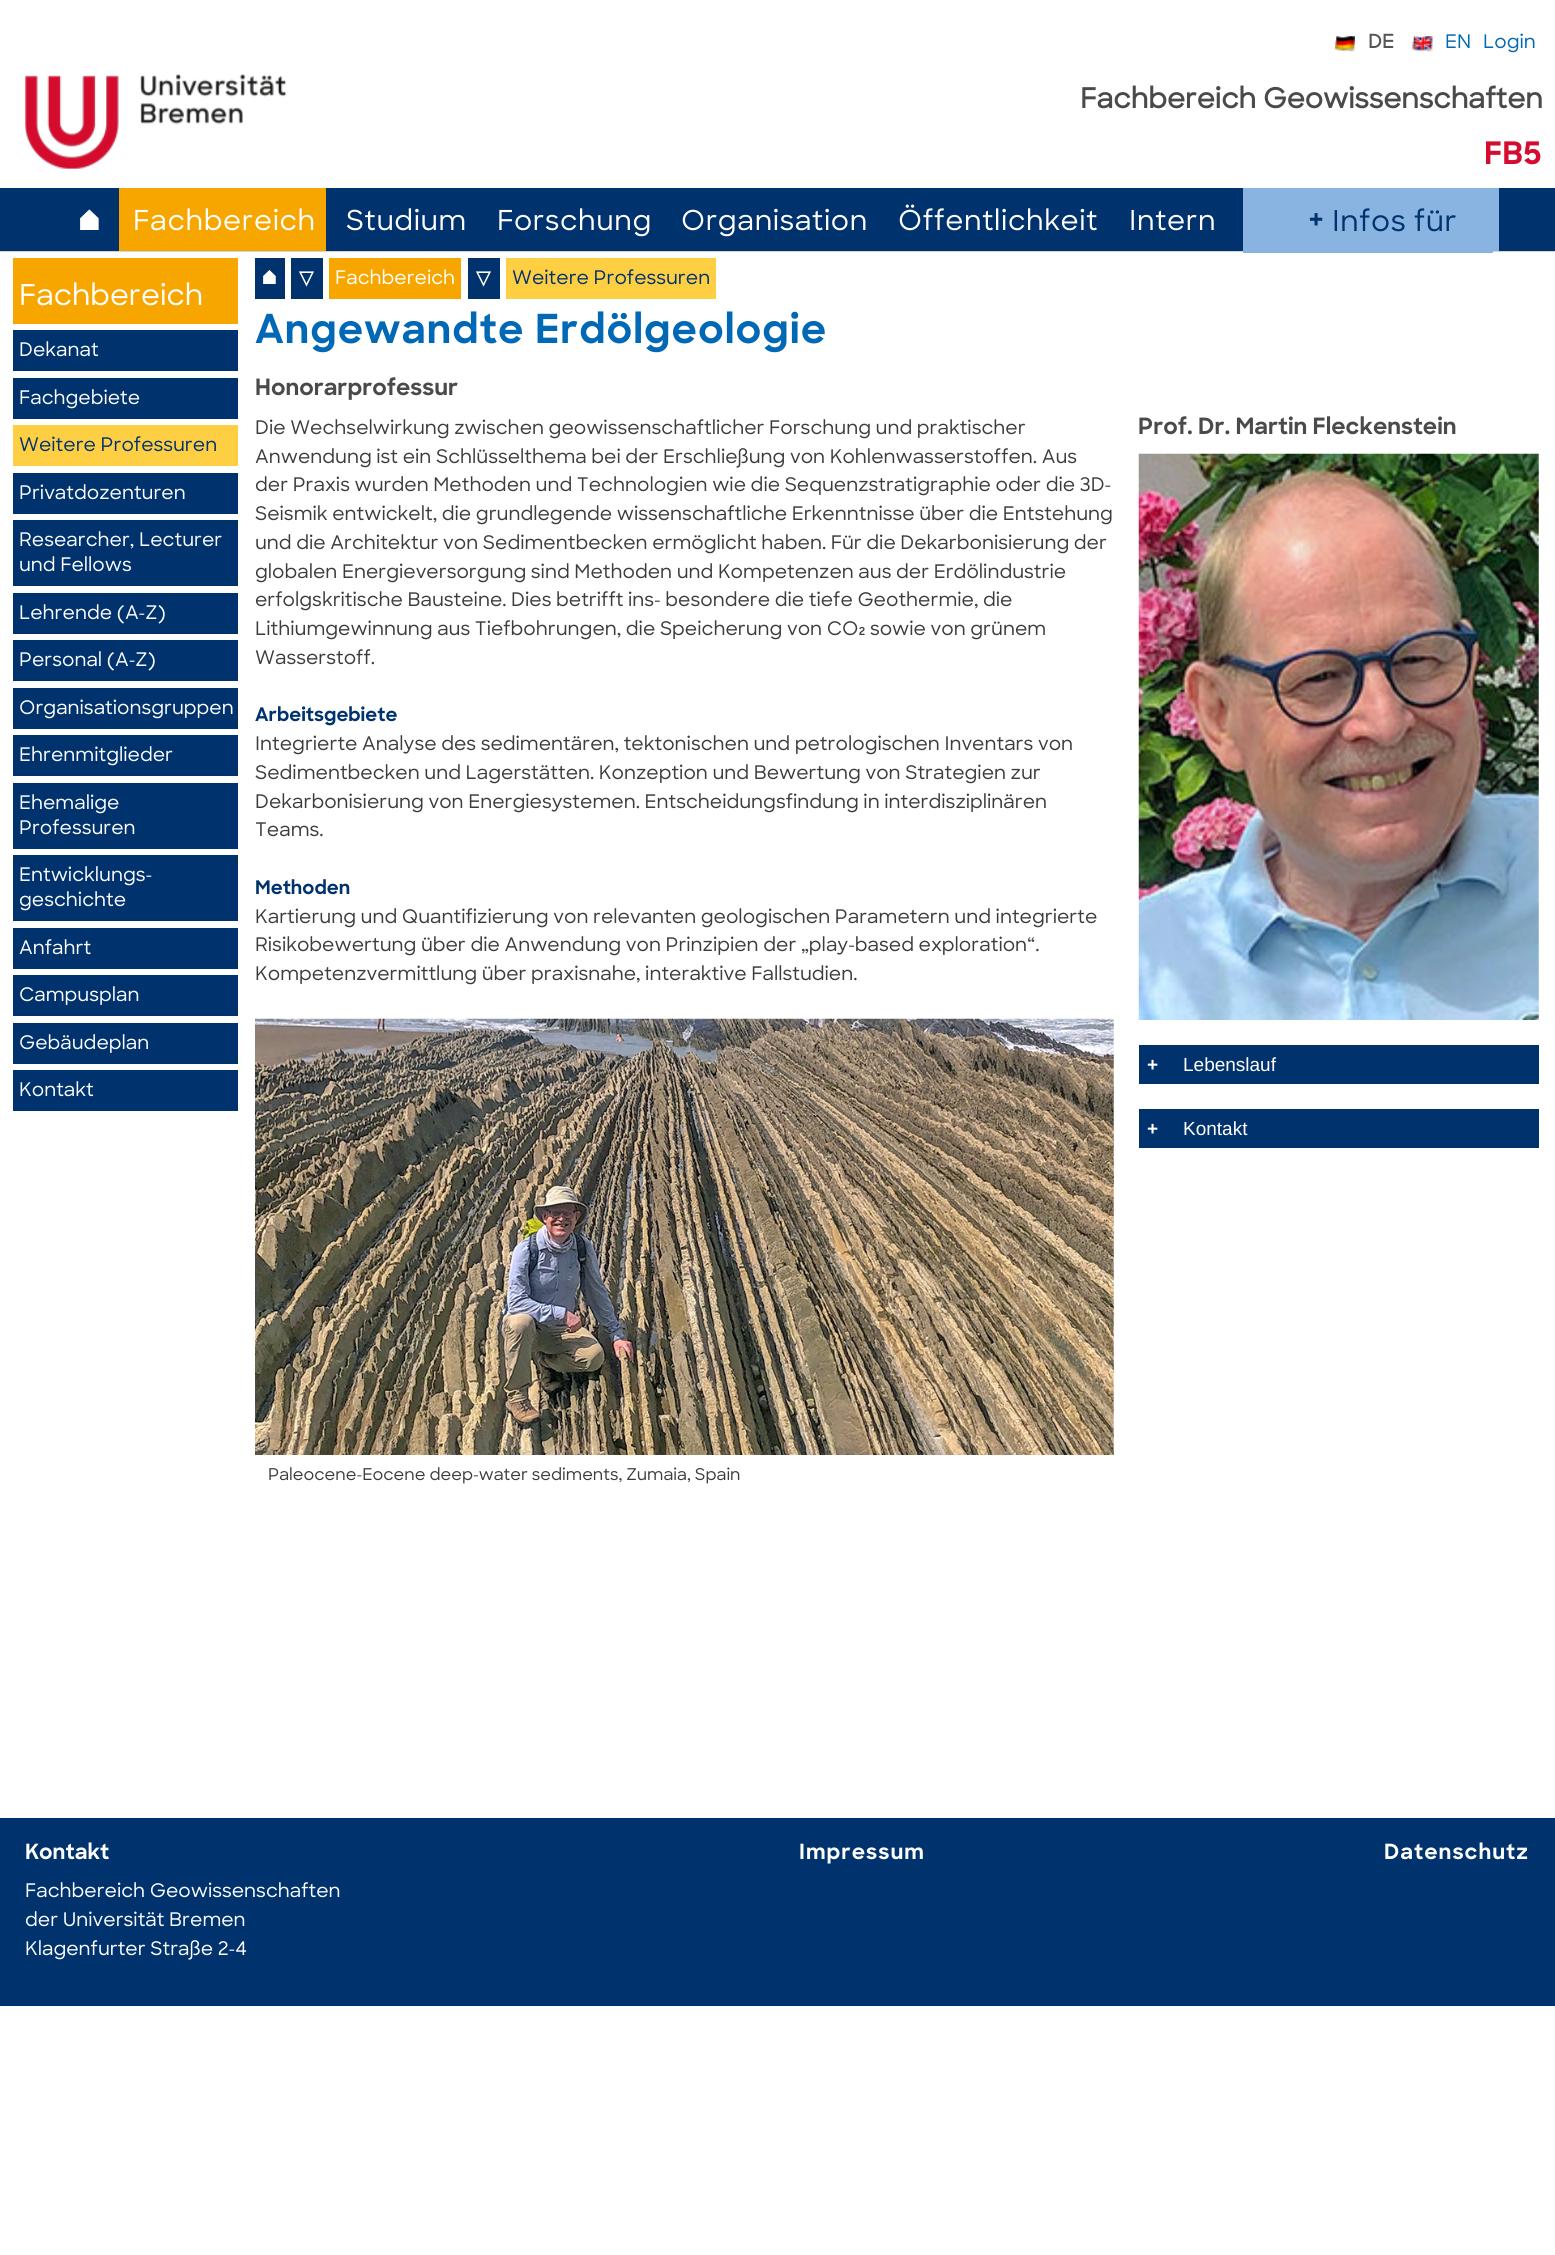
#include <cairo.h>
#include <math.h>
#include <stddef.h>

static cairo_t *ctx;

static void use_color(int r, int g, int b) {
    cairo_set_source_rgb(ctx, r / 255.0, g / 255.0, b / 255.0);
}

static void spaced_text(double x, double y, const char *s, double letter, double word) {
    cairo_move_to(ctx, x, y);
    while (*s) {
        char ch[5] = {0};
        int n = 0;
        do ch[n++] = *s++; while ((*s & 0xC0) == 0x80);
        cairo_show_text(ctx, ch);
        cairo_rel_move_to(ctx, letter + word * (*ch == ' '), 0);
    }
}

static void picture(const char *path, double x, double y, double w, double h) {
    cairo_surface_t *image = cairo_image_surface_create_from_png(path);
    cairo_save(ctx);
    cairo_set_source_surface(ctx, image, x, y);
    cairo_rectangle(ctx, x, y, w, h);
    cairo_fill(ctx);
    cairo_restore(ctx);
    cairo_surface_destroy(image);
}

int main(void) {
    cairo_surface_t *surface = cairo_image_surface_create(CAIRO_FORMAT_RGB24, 1555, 2255);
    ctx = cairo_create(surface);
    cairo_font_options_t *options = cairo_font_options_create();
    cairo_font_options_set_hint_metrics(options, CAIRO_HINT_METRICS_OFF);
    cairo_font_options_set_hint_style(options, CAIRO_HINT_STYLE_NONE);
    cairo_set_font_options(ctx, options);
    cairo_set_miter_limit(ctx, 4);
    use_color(255, 255, 255);
    cairo_paint(ctx);
    use_color(213, 213, 213);
    cairo_rectangle(ctx, 0, 251, 1555, 1);
    cairo_fill(ctx);
    picture("img1.png", 1335, 36, 20, 16);
    cairo_select_font_face(ctx, "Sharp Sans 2", CAIRO_FONT_SLANT_NORMAL, CAIRO_FONT_WEIGHT_BOLD);
    cairo_set_font_size(ctx, 18.75);
    use_color(85, 85, 85);
    cairo_move_to(ctx, 1368, 48);
    cairo_show_text(ctx, "DE");
    picture("img2.png", 1412, 36, 21, 16);
    cairo_select_font_face(ctx, "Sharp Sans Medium", CAIRO_FONT_SLANT_NORMAL, CAIRO_FONT_WEIGHT_NORMAL);
    use_color(0, 104, 180);
    cairo_move_to(ctx, 1445, 48);
    cairo_show_text(ctx, "EN");
    cairo_move_to(ctx, 1483, 48);
    cairo_show_text(ctx, "Login");
    picture("img3.png", 25, 74, 262, 95);
    cairo_select_font_face(ctx, "Sharp Sans 2", CAIRO_FONT_SLANT_NORMAL, CAIRO_FONT_WEIGHT_BOLD);
    cairo_set_font_size(ctx, 27.5);
    use_color(74, 74, 74);
    cairo_move_to(ctx, 1080, 108);
    cairo_show_text(ctx, "Fachbereich Geowissenschaften");
    cairo_select_font_face(ctx, "Sharp Sans", CAIRO_FONT_SLANT_NORMAL, CAIRO_FONT_WEIGHT_BOLD);
    cairo_set_font_size(ctx, 31);
    use_color(213, 12, 47);
    cairo_move_to(ctx, 1484, 164);
    cairo_show_text(ctx, "FB5");
    use_color(0, 50, 109);
    cairo_rectangle(ctx, 0, 188, 1555, 63);
    cairo_fill(ctx);
    cairo_select_font_face(ctx, "Sharp Sans Medium", CAIRO_FONT_SLANT_NORMAL, CAIRO_FONT_WEIGHT_NORMAL);
    cairo_set_font_size(ctx, 27.5);
    use_color(255, 255, 255);
    spaced_text(77, 230, "⌂", 0.6, 0);
    use_color(247, 166, 0);
    cairo_rectangle(ctx, 119, 188, 207, 63);
    cairo_fill(ctx);
    use_color(255, 255, 255);
    spaced_text(133, 230, "Fachbereich", 0.6, 0);
    spaced_text(346, 230, "Studium", 0.6, 0);
    spaced_text(497, 230, "Forschung", 0.6, 0);
    spaced_text(681, 230, "Organisation", 0.6, 0);
    spaced_text(898, 230, "Öffentlichkeit", 0.6, 0);
    spaced_text(1129, 230, "Intern", 0.6, 0);
    use_color(137, 180, 225);
    cairo_rectangle(ctx, 1493, 188, 6, 63);
    cairo_fill(ctx);
    cairo_rectangle(ctx, 1243, 188, 250, 65);
    cairo_fill(ctx);
    cairo_select_font_face(ctx, "Sharp Sans 2", CAIRO_FONT_SLANT_NORMAL, CAIRO_FONT_WEIGHT_BOLD);
    cairo_set_font_size(ctx, 31);
    use_color(0, 50, 109);
    spaced_text(1308, 231, "+", 0.6, 0);
    cairo_select_font_face(ctx, "Sharp Sans Medium", CAIRO_FONT_SLANT_NORMAL, CAIRO_FONT_WEIGHT_NORMAL);
    cairo_set_font_size(ctx, 28.75);
    spaced_text(1332, 231, "Infos für", 0.6, 0);
    use_color(247, 166, 0);
    cairo_rectangle(ctx, 13, 258, 225, 66);
    cairo_fill(ctx);
    use_color(255, 255, 255);
    cairo_move_to(ctx, 19, 305);
    cairo_show_text(ctx, "Fachbereich");
    use_color(0, 50, 109);
    cairo_rectangle(ctx, 13, 330, 225, 41);
    cairo_fill(ctx);
    cairo_set_font_size(ctx, 18.75);
    use_color(255, 255, 255);
    cairo_move_to(ctx, 19, 356);
    cairo_show_text(ctx, "Dekanat");
    use_color(0, 50, 109);
    cairo_rectangle(ctx, 13, 378, 225, 41);
    cairo_fill(ctx);
    use_color(255, 255, 255);
    cairo_move_to(ctx, 19, 404);
    cairo_show_text(ctx, "Fachgebiete");
    use_color(254, 206, 67);
    cairo_rectangle(ctx, 13, 425, 225, 41);
    cairo_fill(ctx);
    use_color(0, 50, 109);
    cairo_move_to(ctx, 19, 451);
    cairo_show_text(ctx, "Weitere Professuren");
    cairo_rectangle(ctx, 13, 473, 225, 41);
    cairo_fill(ctx);
    use_color(255, 255, 255);
    cairo_move_to(ctx, 19, 499);
    cairo_show_text(ctx, "Privatdozenturen");
    use_color(0, 50, 109);
    cairo_rectangle(ctx, 13, 520, 225, 66);
    cairo_fill(ctx);
    use_color(255, 255, 255);
    cairo_move_to(ctx, 19, 546);
    cairo_show_text(ctx, "Researcher, Lecturer");
    cairo_move_to(ctx, 19, 571);
    cairo_show_text(ctx, "und Fellows");
    use_color(0, 50, 109);
    cairo_rectangle(ctx, 13, 593, 225, 41);
    cairo_fill(ctx);
    use_color(255, 255, 255);
    cairo_move_to(ctx, 19, 619);
    cairo_show_text(ctx, "Lehrende (A-Z)");
    use_color(0, 50, 109);
    cairo_rectangle(ctx, 13, 640, 225, 41);
    cairo_fill(ctx);
    use_color(255, 255, 255);
    cairo_move_to(ctx, 19, 666);
    cairo_show_text(ctx, "Personal (A-Z)");
    use_color(0, 50, 109);
    cairo_rectangle(ctx, 13, 688, 225, 41);
    cairo_fill(ctx);
    use_color(255, 255, 255);
    cairo_move_to(ctx, 19, 714);
    cairo_show_text(ctx, "Organisationsgruppen");
    use_color(0, 50, 109);
    cairo_rectangle(ctx, 13, 735, 225, 41);
    cairo_fill(ctx);
    use_color(255, 255, 255);
    cairo_move_to(ctx, 19, 761);
    cairo_show_text(ctx, "Ehrenmitglieder");
    use_color(0, 50, 109);
    cairo_rectangle(ctx, 13, 783, 225, 66);
    cairo_fill(ctx);
    use_color(255, 255, 255);
    cairo_move_to(ctx, 19, 809);
    cairo_show_text(ctx, "Ehemalige");
    cairo_move_to(ctx, 19, 834);
    cairo_show_text(ctx, "Professuren");
    use_color(0, 50, 109);
    cairo_rectangle(ctx, 13, 855, 225, 66);
    cairo_fill(ctx);
    use_color(255, 255, 255);
    cairo_move_to(ctx, 19, 881);
    cairo_show_text(ctx, "Entwicklungs-");
    cairo_move_to(ctx, 19, 906);
    cairo_show_text(ctx, "geschichte");
    use_color(0, 50, 109);
    cairo_rectangle(ctx, 13, 928, 225, 41);
    cairo_fill(ctx);
    use_color(255, 255, 255);
    cairo_move_to(ctx, 19, 954);
    cairo_show_text(ctx, "Anfahrt");
    use_color(0, 50, 109);
    cairo_rectangle(ctx, 13, 975, 225, 41);
    cairo_fill(ctx);
    use_color(255, 255, 255);
    cairo_move_to(ctx, 19, 1001);
    cairo_show_text(ctx, "Campusplan");
    use_color(0, 50, 109);
    cairo_rectangle(ctx, 13, 1023, 225, 41);
    cairo_fill(ctx);
    use_color(255, 255, 255);
    cairo_move_to(ctx, 19, 1049);
    cairo_show_text(ctx, "Gebäudeplan");
    use_color(0, 50, 109);
    cairo_rectangle(ctx, 13, 1070, 225, 41);
    cairo_fill(ctx);
    use_color(255, 255, 255);
    cairo_move_to(ctx, 19, 1096);
    cairo_show_text(ctx, "Kontakt");
    use_color(0, 50, 109);
    cairo_rectangle(ctx, 255, 258, 30, 41);
    cairo_fill(ctx);
    use_color(255, 255, 255);
    cairo_move_to(ctx, 261, 284);
    cairo_show_text(ctx, "⌂");
    use_color(0, 50, 109);
    cairo_rectangle(ctx, 291, 258, 32, 41);
    cairo_fill(ctx);
    cairo_select_font_face(ctx, "DejaVu Sans", CAIRO_FONT_SLANT_NORMAL, CAIRO_FONT_WEIGHT_BOLD);
    use_color(255, 255, 255);
    cairo_move_to(ctx, 299, 284);
    cairo_show_text(ctx, "▽");
    use_color(247, 166, 0);
    cairo_rectangle(ctx, 329, 258, 132, 41);
    cairo_fill(ctx);
    cairo_select_font_face(ctx, "Sharp Sans Medium", CAIRO_FONT_SLANT_NORMAL, CAIRO_FONT_WEIGHT_NORMAL);
    use_color(255, 255, 255);
    cairo_move_to(ctx, 335, 284);
    cairo_show_text(ctx, "Fachbereich");
    use_color(0, 50, 109);
    cairo_rectangle(ctx, 468, 258, 32, 41);
    cairo_fill(ctx);
    cairo_select_font_face(ctx, "DejaVu Sans", CAIRO_FONT_SLANT_NORMAL, CAIRO_FONT_WEIGHT_BOLD);
    use_color(255, 255, 255);
    cairo_move_to(ctx, 476, 284);
    cairo_show_text(ctx, "▽");
    use_color(254, 206, 67);
    cairo_rectangle(ctx, 506, 258, 210, 41);
    cairo_fill(ctx);
    cairo_select_font_face(ctx, "Sharp Sans Medium", CAIRO_FONT_SLANT_NORMAL, CAIRO_FONT_WEIGHT_NORMAL);
    use_color(0, 50, 109);
    cairo_move_to(ctx, 512, 284);
    cairo_show_text(ctx, "Weitere Professuren");
    cairo_select_font_face(ctx, "Sharp Sans", CAIRO_FONT_SLANT_NORMAL, CAIRO_FONT_WEIGHT_BOLD);
    cairo_set_font_size(ctx, 40);
    use_color(0, 104, 180);
    spaced_text(255, 343, "Angewandte Erdölgeologie", 1, 0);
    cairo_set_font_size(ctx, 22.5);
    use_color(74, 74, 74);
    cairo_move_to(ctx, 255, 395);
    cairo_show_text(ctx, "Honorarprofessur");
    cairo_select_font_face(ctx, "Sharp Sans Medium", CAIRO_FONT_SLANT_NORMAL, CAIRO_FONT_WEIGHT_NORMAL);
    cairo_set_font_size(ctx, 18.75);
    use_color(60, 60, 60);
    cairo_move_to(ctx, 255, 434);
    cairo_show_text(ctx, "Die Wechselwirkung zwischen geowissenschaftlicher Forschung und praktischer");
    cairo_move_to(ctx, 255, 463);
    cairo_show_text(ctx, "Anwendung ist ein Schlüsselthema bei der Erschließung von Kohlenwasserstoffen. Aus");
    cairo_move_to(ctx, 255, 491);
    cairo_show_text(ctx, "der Praxis wurden Methoden und Technologien wie die Sequenzstratigraphie oder die 3D-");
    cairo_move_to(ctx, 255, 520);
    cairo_show_text(ctx, "Seismik entwickelt, die grundlegende wissenschaftliche Erkenntnisse über die Entstehung");
    cairo_move_to(ctx, 255, 549);
    cairo_show_text(ctx, "und die Architektur von Sedimentbecken ermöglicht haben. Für die Dekarbonisierung der");
    cairo_move_to(ctx, 255, 578);
    cairo_show_text(ctx, "globalen Energieversorgung sind Methoden und Kompetenzen aus der Erdölindustrie");
    cairo_move_to(ctx, 255, 606);
    cairo_show_text(ctx, "erfolgskritische Bausteine. Dies betrifft ins- besondere die tiefe Geothermie, die");
    cairo_move_to(ctx, 255, 635);
    cairo_show_text(ctx, "Lithiumgewinnung aus Tiefbohrungen, die Speicherung von CO₂ sowie von grünem");
    cairo_move_to(ctx, 255, 664);
    cairo_show_text(ctx, "Wasserstoff.");
    cairo_select_font_face(ctx, "Sharp Sans", CAIRO_FONT_SLANT_NORMAL, CAIRO_FONT_WEIGHT_BOLD);
    use_color(0, 50, 109);
    cairo_move_to(ctx, 255, 721);
    cairo_show_text(ctx, "Arbeitsgebiete");
    cairo_select_font_face(ctx, "Sharp Sans Medium", CAIRO_FONT_SLANT_NORMAL, CAIRO_FONT_WEIGHT_NORMAL);
    use_color(60, 60, 60);
    cairo_move_to(ctx, 255, 750);
    cairo_show_text(ctx, "Integrierte Analyse des sedimentären, tektonischen und petrologischen Inventars von");
    cairo_move_to(ctx, 255, 779);
    cairo_show_text(ctx, "Sedimentbecken und Lagerstätten. Konzeption und Bewertung von Strategien zur");
    cairo_move_to(ctx, 255, 808);
    cairo_show_text(ctx, "Dekarbonisierung von Energiesystemen. Entscheidungsfindung in interdisziplinären");
    cairo_move_to(ctx, 255, 836);
    cairo_show_text(ctx, "Teams.");
    cairo_select_font_face(ctx, "Sharp Sans", CAIRO_FONT_SLANT_NORMAL, CAIRO_FONT_WEIGHT_BOLD);
    use_color(0, 50, 109);
    cairo_move_to(ctx, 255, 894);
    cairo_show_text(ctx, "Methoden");
    cairo_select_font_face(ctx, "Sharp Sans Medium", CAIRO_FONT_SLANT_NORMAL, CAIRO_FONT_WEIGHT_NORMAL);
    use_color(60, 60, 60);
    cairo_move_to(ctx, 255, 923);
    cairo_show_text(ctx, "Kartierung und Quantifizierung von relevanten geologischen Parametern und integrierte");
    cairo_move_to(ctx, 255, 951);
    cairo_show_text(ctx, "Risikobewertung über die Anwendung von Prinzipien der „play-based exploration“.");
    cairo_move_to(ctx, 255, 980);
    cairo_show_text(ctx, "Kompetenzvermittlung über praxisnahe, interaktive Fallstudien.");
    picture("img4.png", 255, 1018, 859, 437);
    cairo_set_font_size(ctx, 16.25);
    cairo_move_to(ctx, 268, 1480);
    cairo_show_text(ctx, "Paleocene-Eocene deep-water sediments, Zumaia, Spain");
    cairo_select_font_face(ctx, "Sharp Sans", CAIRO_FONT_SLANT_NORMAL, CAIRO_FONT_WEIGHT_BOLD);
    cairo_set_font_size(ctx, 22.5);
    use_color(74, 74, 74);
    cairo_move_to(ctx, 1138, 434);
    cairo_show_text(ctx, "Prof. Dr. Martin Fleckenstein");
    picture("img5.png", 1138, 453, 401, 567);
    use_color(0, 50, 109);
    cairo_rectangle(ctx, 1139, 1045, 400, 39);
    cairo_fill(ctx);
    cairo_select_font_face(ctx, "Liberation Sans", CAIRO_FONT_SLANT_NORMAL, CAIRO_FONT_WEIGHT_BOLD);
    cairo_set_font_size(ctx, 19);
    use_color(255, 255, 255);
    cairo_move_to(ctx, 1147, 1071);
    cairo_show_text(ctx, "+");
    cairo_select_font_face(ctx, "Liberation Sans", CAIRO_FONT_SLANT_NORMAL, CAIRO_FONT_WEIGHT_NORMAL);
    cairo_move_to(ctx, 1183, 1071);
    cairo_show_text(ctx, "Lebenslauf");
    use_color(0, 50, 109);
    cairo_rectangle(ctx, 1139, 1109, 400, 39);
    cairo_fill(ctx);
    cairo_select_font_face(ctx, "Liberation Sans", CAIRO_FONT_SLANT_NORMAL, CAIRO_FONT_WEIGHT_BOLD);
    use_color(255, 255, 255);
    cairo_move_to(ctx, 1147, 1135);
    cairo_show_text(ctx, "+");
    cairo_select_font_face(ctx, "Liberation Sans", CAIRO_FONT_SLANT_NORMAL, CAIRO_FONT_WEIGHT_NORMAL);
    cairo_move_to(ctx, 1183, 1135);
    cairo_show_text(ctx, "Kontakt");
    use_color(0, 50, 109);
    cairo_rectangle(ctx, 0, 1818, 1555, 188);
    cairo_fill(ctx);
    cairo_select_font_face(ctx, "Sharp Sans", CAIRO_FONT_SLANT_NORMAL, CAIRO_FONT_WEIGHT_BOLD);
    cairo_set_font_size(ctx, 21);
    use_color(255, 255, 255);
    cairo_move_to(ctx, 25, 1859);
    cairo_show_text(ctx, "Kontakt");
    cairo_select_font_face(ctx, "Sharp Sans Medium", CAIRO_FONT_SLANT_NORMAL, CAIRO_FONT_WEIGHT_NORMAL);
    cairo_set_font_size(ctx, 18.75);
    cairo_move_to(ctx, 25, 1897);
    cairo_show_text(ctx, "Fachbereich Geowissenschaften");
    cairo_move_to(ctx, 25, 1926);
    cairo_show_text(ctx, "der Universität Bremen");
    cairo_move_to(ctx, 25, 1955);
    cairo_show_text(ctx, "Klagenfurter Straße 2-4");
    cairo_select_font_face(ctx, "Sharp Sans", CAIRO_FONT_SLANT_NORMAL, CAIRO_FONT_WEIGHT_BOLD);
    cairo_set_font_size(ctx, 21);
    spaced_text(799, 1859, "Impressum", 1, 0);
    spaced_text(1384, 1859, "Datenschutz", 1, 0);
    cairo_surface_write_to_png(surface, "result.png");
    cairo_font_options_destroy(options);
    cairo_destroy(ctx);
    cairo_surface_destroy(surface);
    return 0;
}
